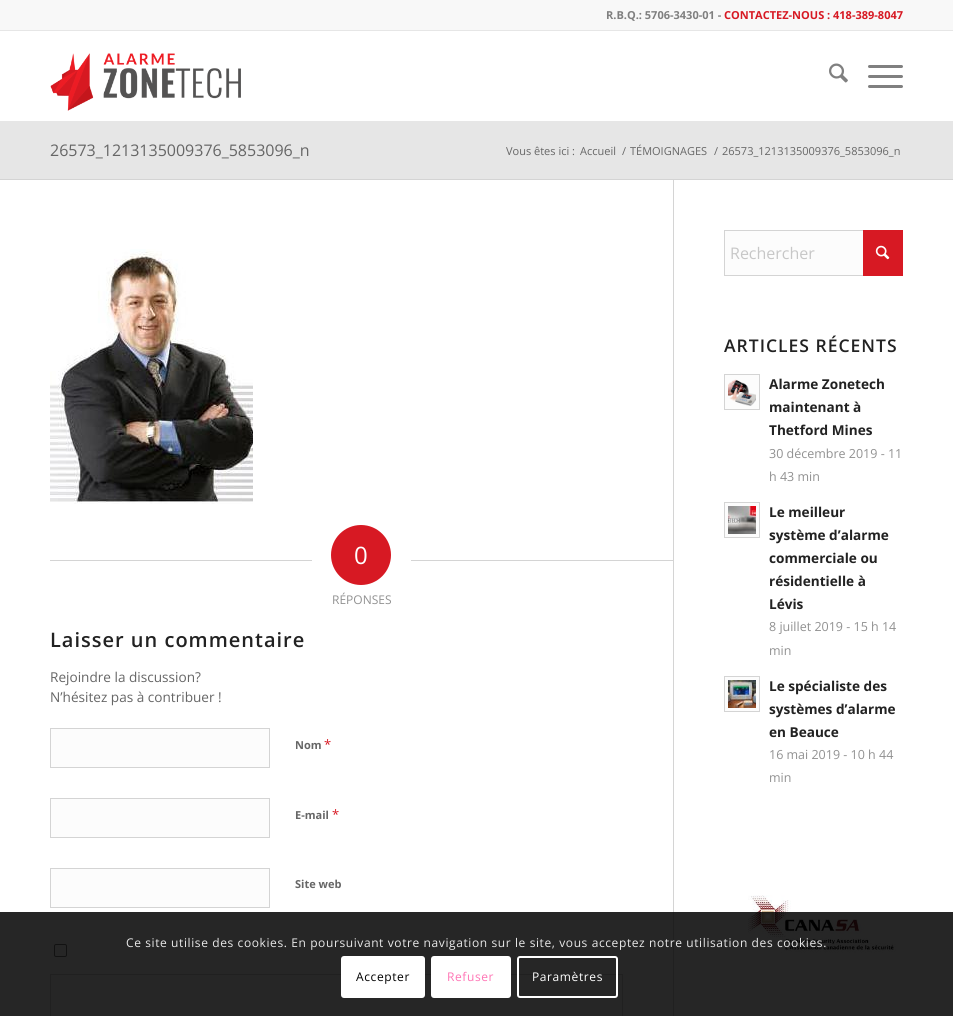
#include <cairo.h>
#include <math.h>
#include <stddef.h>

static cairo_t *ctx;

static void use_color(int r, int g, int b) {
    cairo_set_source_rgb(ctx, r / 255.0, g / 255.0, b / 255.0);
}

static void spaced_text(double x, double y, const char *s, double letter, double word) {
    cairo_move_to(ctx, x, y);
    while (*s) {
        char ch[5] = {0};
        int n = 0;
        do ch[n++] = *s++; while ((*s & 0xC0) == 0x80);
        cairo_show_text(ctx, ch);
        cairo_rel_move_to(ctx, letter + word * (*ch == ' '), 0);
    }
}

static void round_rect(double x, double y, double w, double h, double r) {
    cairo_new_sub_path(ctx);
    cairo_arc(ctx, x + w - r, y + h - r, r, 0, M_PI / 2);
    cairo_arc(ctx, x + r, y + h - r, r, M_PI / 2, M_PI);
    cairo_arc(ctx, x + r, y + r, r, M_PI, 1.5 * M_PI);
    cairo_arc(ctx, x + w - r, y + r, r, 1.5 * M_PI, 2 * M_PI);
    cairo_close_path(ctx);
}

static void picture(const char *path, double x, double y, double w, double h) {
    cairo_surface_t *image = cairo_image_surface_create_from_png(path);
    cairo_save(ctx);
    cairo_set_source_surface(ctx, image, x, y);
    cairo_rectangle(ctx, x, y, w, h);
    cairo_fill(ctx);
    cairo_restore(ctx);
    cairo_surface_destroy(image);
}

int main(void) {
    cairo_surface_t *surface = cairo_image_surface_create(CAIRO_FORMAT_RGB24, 953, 1016);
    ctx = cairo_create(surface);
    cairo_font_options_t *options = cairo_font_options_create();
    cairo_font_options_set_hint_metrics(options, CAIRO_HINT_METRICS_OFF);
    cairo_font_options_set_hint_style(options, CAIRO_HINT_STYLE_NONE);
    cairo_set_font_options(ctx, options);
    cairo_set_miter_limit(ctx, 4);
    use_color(255, 255, 255);
    cairo_paint(ctx);
    use_color(248, 248, 248);
    cairo_rectangle(ctx, 0, 0, 953, 30);
    cairo_fill(ctx);
    use_color(230, 230, 230);
    cairo_rectangle(ctx, 0, 30, 953, 1);
    cairo_fill(ctx);
    cairo_select_font_face(ctx, "Open Sans", CAIRO_FONT_SLANT_NORMAL, CAIRO_FONT_WEIGHT_BOLD);
    cairo_set_font_size(ctx, 11);
    use_color(128, 128, 128);
    cairo_move_to(ctx, 606, 19);
    cairo_show_text(ctx, "R.B.Q.: 5706-3430-01 -");
    use_color(215, 25, 35);
    cairo_move_to(ctx, 724, 19);
    cairo_show_text(ctx, "CONTACTEZ-NOUS : 418-389-8047");
    picture("img1.png", 50, 53, 191, 58);
    picture("img2.png", 829, 63, 19, 20);
    use_color(128, 128, 128);
    round_rect(868, 75, 35, 3, 1.5);
    cairo_fill(ctx);
    round_rect(868, 65, 35, 3, 1.5);
    cairo_fill(ctx);
    round_rect(868, 85, 35, 3, 1.5);
    cairo_fill(ctx);
    use_color(230, 230, 230);
    cairo_rectangle(ctx, 0, 121, 953, 58);
    cairo_fill(ctx);
    cairo_select_font_face(ctx, "Open Sans", CAIRO_FONT_SLANT_NORMAL, CAIRO_FONT_WEIGHT_NORMAL);
    cairo_set_font_size(ctx, 16);
    use_color(102, 102, 102);
    cairo_move_to(ctx, 50, 156);
    cairo_show_text(ctx, "26573_1213135009376_5853096_n");
    cairo_set_font_size(ctx, 11);
    cairo_move_to(ctx, 506, 155);
    cairo_show_text(ctx, "Vous êtes ici :");
    cairo_move_to(ctx, 580, 155);
    cairo_show_text(ctx, "Accueil");
    cairo_move_to(ctx, 622, 155);
    cairo_show_text(ctx, "/");
    cairo_move_to(ctx, 630, 155);
    cairo_show_text(ctx, "TÉMOIGNAGES");
    cairo_move_to(ctx, 714, 155);
    cairo_show_text(ctx, "/");
    cairo_move_to(ctx, 722, 155);
    cairo_show_text(ctx, "26573_1213135009376_5853096_n");
    use_color(212, 212, 212);
    cairo_rectangle(ctx, 0, 179, 953, 1);
    cairo_fill(ctx);
    cairo_rectangle(ctx, 673, 180, 1, 836);
    cairo_fill(ctx);
    picture("img3.png", 50, 249, 203, 255);
    cairo_rectangle(ctx, 50, 560, 262, 1);
    cairo_fill(ctx);
    use_color(215, 25, 35);
    cairo_arc(ctx, 361, 555, 30, 0, 2 * M_PI);
    cairo_fill(ctx);
    cairo_set_font_size(ctx, 24);
    use_color(255, 255, 255);
    cairo_move_to(ctx, 354, 564);
    cairo_show_text(ctx, "0");
    use_color(212, 212, 212);
    cairo_rectangle(ctx, 411, 560, 262, 1);
    cairo_fill(ctx);
    cairo_set_font_size(ctx, 12);
    use_color(145, 145, 145);
    cairo_move_to(ctx, 332, 604);
    cairo_show_text(ctx, "RÉPONSES");
    cairo_select_font_face(ctx, "Open Sans SemiBold", CAIRO_FONT_SLANT_NORMAL, CAIRO_FONT_WEIGHT_NORMAL);
    cairo_set_font_size(ctx, 20);
    use_color(34, 34, 34);
    spaced_text(50, 647, "Laisser un commentaire", 1, 0);
    cairo_select_font_face(ctx, "Open Sans", CAIRO_FONT_SLANT_NORMAL, CAIRO_FONT_WEIGHT_NORMAL);
    cairo_set_font_size(ctx, 13.6);
    use_color(102, 102, 102);
    cairo_move_to(ctx, 50, 682);
    cairo_show_text(ctx, "Rejoindre la discussion?");
    cairo_move_to(ctx, 50, 702);
    cairo_show_text(ctx, "N’hésitez pas à contribuer !");
    use_color(252, 252, 252);
    cairo_rectangle(ctx, 50.5, 728.5, 219, 39);
    cairo_fill_preserve(ctx);
    use_color(212, 212, 212);
    cairo_set_line_width(ctx, 1);
    cairo_stroke(ctx);
    cairo_select_font_face(ctx, "Open Sans", CAIRO_FONT_SLANT_NORMAL, CAIRO_FONT_WEIGHT_BOLD);
    cairo_set_font_size(ctx, 11);
    use_color(102, 102, 102);
    cairo_move_to(ctx, 295, 749);
    cairo_show_text(ctx, "Nom");
    cairo_select_font_face(ctx, "Open Sans", CAIRO_FONT_SLANT_NORMAL, CAIRO_FONT_WEIGHT_NORMAL);
    cairo_set_font_size(ctx, 13);
    use_color(215, 25, 35);
    cairo_move_to(ctx, 324, 749);
    cairo_show_text(ctx, "*");
    use_color(252, 252, 252);
    cairo_rectangle(ctx, 50.5, 798.5, 219, 39);
    cairo_fill_preserve(ctx);
    use_color(212, 212, 212);
    cairo_stroke(ctx);
    cairo_select_font_face(ctx, "Open Sans", CAIRO_FONT_SLANT_NORMAL, CAIRO_FONT_WEIGHT_BOLD);
    cairo_set_font_size(ctx, 11);
    use_color(102, 102, 102);
    cairo_move_to(ctx, 295, 819);
    cairo_show_text(ctx, "E-mail");
    cairo_select_font_face(ctx, "Open Sans", CAIRO_FONT_SLANT_NORMAL, CAIRO_FONT_WEIGHT_NORMAL);
    cairo_set_font_size(ctx, 13);
    use_color(215, 25, 35);
    cairo_move_to(ctx, 332, 819);
    cairo_show_text(ctx, "*");
    use_color(252, 252, 252);
    cairo_rectangle(ctx, 50.5, 868.5, 219, 39);
    cairo_fill_preserve(ctx);
    use_color(212, 212, 212);
    cairo_stroke(ctx);
    cairo_select_font_face(ctx, "Open Sans", CAIRO_FONT_SLANT_NORMAL, CAIRO_FONT_WEIGHT_BOLD);
    cairo_set_font_size(ctx, 11);
    use_color(102, 102, 102);
    cairo_move_to(ctx, 295, 888);
    cairo_show_text(ctx, "Site web");
    round_rect(54.5, 944.5, 12, 12, 1.5);
    use_color(118, 118, 118);
    cairo_stroke(ctx);
    use_color(252, 252, 252);
    cairo_rectangle(ctx, 50.5, 974.5, 572, 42);
    cairo_fill_preserve(ctx);
    use_color(212, 212, 212);
    cairo_stroke(ctx);
    use_color(252, 252, 252);
    cairo_rectangle(ctx, 725, 231, 138, 44);
    cairo_fill(ctx);
    cairo_rectangle(ctx, 724.5, 230.5, 178, 45);
    use_color(212, 212, 212);
    cairo_stroke(ctx);
    use_color(215, 25, 35);
    cairo_rectangle(ctx, 863, 230, 40, 46);
    cairo_fill(ctx);
    cairo_select_font_face(ctx, "Open Sans", CAIRO_FONT_SLANT_NORMAL, CAIRO_FONT_WEIGHT_NORMAL);
    cairo_set_font_size(ctx, 16);
    use_color(199, 199, 199);
    cairo_move_to(ctx, 730, 259);
    cairo_show_text(ctx, "Rechercher");
    picture("img4.png", 875, 245, 15, 15);
    cairo_select_font_face(ctx, "Open Sans SemiBold", CAIRO_FONT_SLANT_NORMAL, CAIRO_FONT_WEIGHT_NORMAL);
    cairo_set_font_size(ctx, 17.5);
    use_color(34, 34, 34);
    spaced_text(724, 352, "ARTICLES RÉCENTS", 1, 0);
    use_color(252, 252, 252);
    cairo_rectangle(ctx, 724.5, 374.5, 35, 35);
    cairo_fill_preserve(ctx);
    use_color(212, 212, 212);
    cairo_stroke(ctx);
    picture("img5.png", 728, 379, 28, 27);
    cairo_select_font_face(ctx, "Open Sans", CAIRO_FONT_SLANT_NORMAL, CAIRO_FONT_WEIGHT_BOLD);
    cairo_set_font_size(ctx, 13.6);
    use_color(34, 34, 34);
    cairo_move_to(ctx, 769, 389);
    cairo_show_text(ctx, "Alarme Zonetech");
    cairo_move_to(ctx, 769, 412);
    cairo_show_text(ctx, "maintenant à");
    cairo_move_to(ctx, 769, 435);
    cairo_show_text(ctx, "Thetford Mines");
    cairo_select_font_face(ctx, "Open Sans", CAIRO_FONT_SLANT_NORMAL, CAIRO_FONT_WEIGHT_NORMAL);
    cairo_set_font_size(ctx, 12.5);
    use_color(145, 145, 145);
    cairo_move_to(ctx, 769, 458);
    cairo_show_text(ctx, "30 décembre 2019 - 11");
    cairo_move_to(ctx, 769, 481);
    cairo_show_text(ctx, "h 43 min");
    use_color(252, 252, 252);
    cairo_rectangle(ctx, 724.5, 502.5, 35, 35);
    cairo_fill_preserve(ctx);
    use_color(212, 212, 212);
    cairo_stroke(ctx);
    picture("img6.png", 728, 506, 28, 28);
    cairo_select_font_face(ctx, "Open Sans", CAIRO_FONT_SLANT_NORMAL, CAIRO_FONT_WEIGHT_BOLD);
    cairo_set_font_size(ctx, 13.6);
    use_color(34, 34, 34);
    cairo_move_to(ctx, 769, 517);
    cairo_show_text(ctx, "Le meilleur");
    cairo_move_to(ctx, 769, 540);
    cairo_show_text(ctx, "système d’alarme");
    cairo_move_to(ctx, 769, 563);
    cairo_show_text(ctx, "commerciale ou");
    cairo_move_to(ctx, 769, 586);
    cairo_show_text(ctx, "résidentielle à");
    cairo_move_to(ctx, 769, 609);
    cairo_show_text(ctx, "Lévis");
    cairo_select_font_face(ctx, "Open Sans", CAIRO_FONT_SLANT_NORMAL, CAIRO_FONT_WEIGHT_NORMAL);
    cairo_set_font_size(ctx, 12.5);
    use_color(145, 145, 145);
    cairo_move_to(ctx, 769, 631);
    cairo_show_text(ctx, "8 juillet 2019 - 15 h 14");
    cairo_move_to(ctx, 769, 655);
    cairo_show_text(ctx, "min");
    use_color(252, 252, 252);
    cairo_rectangle(ctx, 724.5, 676.5, 35, 35);
    cairo_fill_preserve(ctx);
    use_color(212, 212, 212);
    cairo_stroke(ctx);
    picture("img7.png", 728, 680, 28, 28);
    cairo_select_font_face(ctx, "Open Sans", CAIRO_FONT_SLANT_NORMAL, CAIRO_FONT_WEIGHT_BOLD);
    cairo_set_font_size(ctx, 13.6);
    use_color(34, 34, 34);
    cairo_move_to(ctx, 769, 691);
    cairo_show_text(ctx, "Le spécialiste des");
    cairo_move_to(ctx, 769, 714);
    cairo_show_text(ctx, "systèmes d’alarme");
    cairo_move_to(ctx, 769, 737);
    cairo_show_text(ctx, "en Beauce");
    cairo_select_font_face(ctx, "Open Sans", CAIRO_FONT_SLANT_NORMAL, CAIRO_FONT_WEIGHT_NORMAL);
    cairo_set_font_size(ctx, 12.5);
    use_color(145, 145, 145);
    cairo_move_to(ctx, 769, 759);
    cairo_show_text(ctx, "16 mai 2019 - 10 h 44");
    cairo_move_to(ctx, 769, 782);
    cairo_show_text(ctx, "min");
    picture("img8.png", 748, 895, 148, 58);
    cairo_set_source_rgba(ctx, 0, 0, 0, 0.85);
    cairo_rectangle(ctx, 0, 912, 953, 104);
    cairo_fill(ctx);
    cairo_set_font_size(ctx, 12);
    use_color(233, 233, 233);
    spaced_text(126, 947, "Ce site utilise des cookies. En poursuivant votre navigation sur le site, vous acceptez notre utilisation des cookies.", 0.6, 0);
    use_color(255, 255, 255);
    round_rect(341, 956, 84, 42, 3);
    cairo_fill(ctx);
    use_color(0, 0, 0);
    spaced_text(356, 981, "Accepter", 0.6, 0);
    use_color(255, 255, 255);
    round_rect(432, 957, 78, 40, 2);
    cairo_fill_preserve(ctx);
    cairo_set_line_width(ctx, 2);
    cairo_stroke(ctx);
    use_color(255, 117, 181);
    spaced_text(447, 981, "Refuser", 0.6, 0);
    round_rect(518, 957, 99, 40, 2);
    use_color(255, 255, 255);
    cairo_stroke(ctx);
    spaced_text(532, 981, "Paramètres", 0.6, 0);
    cairo_surface_write_to_png(surface, "result.png");
    cairo_font_options_destroy(options);
    cairo_destroy(ctx);
    cairo_surface_destroy(surface);
    return 0;
}
